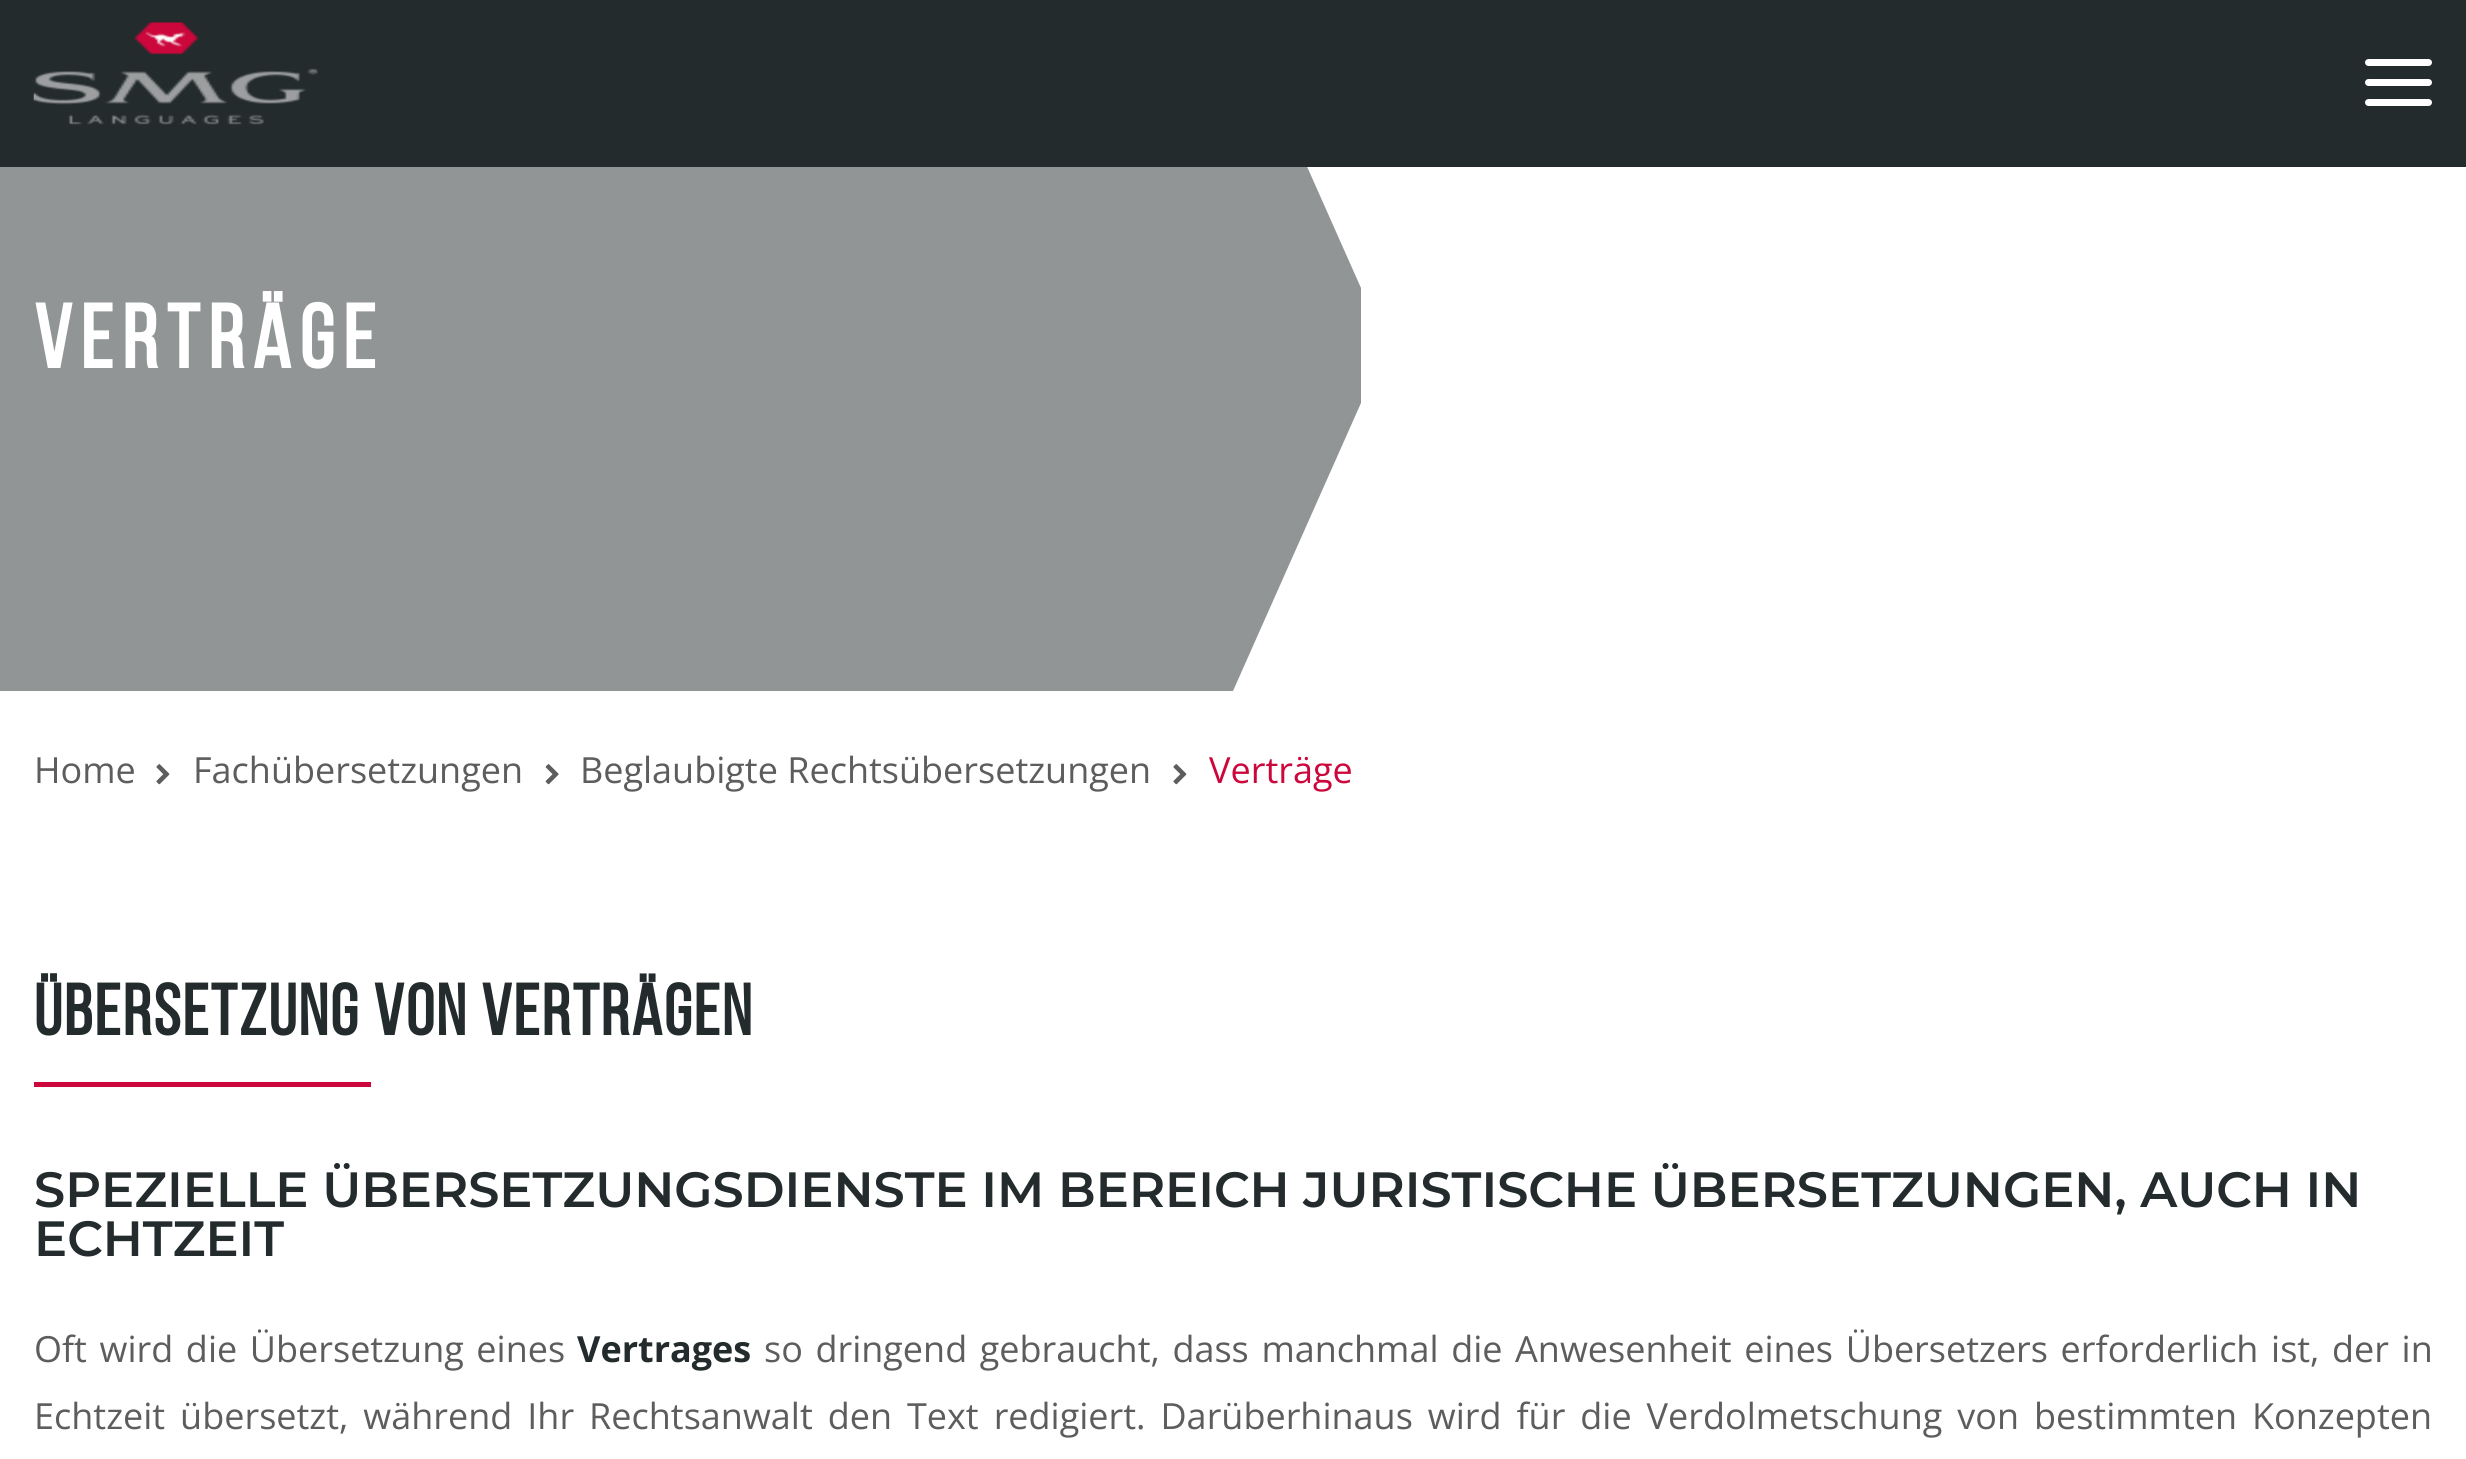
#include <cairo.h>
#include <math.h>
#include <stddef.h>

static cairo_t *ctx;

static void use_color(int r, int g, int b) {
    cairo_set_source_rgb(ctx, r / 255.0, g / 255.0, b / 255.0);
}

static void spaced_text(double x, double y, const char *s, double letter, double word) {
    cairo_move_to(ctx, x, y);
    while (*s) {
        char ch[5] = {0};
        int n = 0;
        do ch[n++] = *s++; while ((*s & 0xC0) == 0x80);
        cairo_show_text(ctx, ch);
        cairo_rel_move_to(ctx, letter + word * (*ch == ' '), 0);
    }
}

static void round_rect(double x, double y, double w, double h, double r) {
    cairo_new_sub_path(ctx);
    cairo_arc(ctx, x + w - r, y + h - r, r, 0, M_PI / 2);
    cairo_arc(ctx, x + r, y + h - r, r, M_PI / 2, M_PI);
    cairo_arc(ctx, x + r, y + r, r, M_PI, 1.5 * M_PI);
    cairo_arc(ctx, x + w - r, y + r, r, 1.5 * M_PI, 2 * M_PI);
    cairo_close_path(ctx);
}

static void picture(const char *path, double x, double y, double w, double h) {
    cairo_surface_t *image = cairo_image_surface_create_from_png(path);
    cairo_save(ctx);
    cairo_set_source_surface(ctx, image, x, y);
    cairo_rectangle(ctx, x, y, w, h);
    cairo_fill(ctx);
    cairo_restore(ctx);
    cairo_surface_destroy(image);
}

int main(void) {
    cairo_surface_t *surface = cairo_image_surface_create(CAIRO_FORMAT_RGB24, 2466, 1459);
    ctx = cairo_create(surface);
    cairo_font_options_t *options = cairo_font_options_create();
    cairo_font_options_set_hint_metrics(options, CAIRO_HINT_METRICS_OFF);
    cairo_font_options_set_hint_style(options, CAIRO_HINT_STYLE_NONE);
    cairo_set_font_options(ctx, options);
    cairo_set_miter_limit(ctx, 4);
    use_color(255, 255, 255);
    cairo_paint(ctx);
    use_color(145, 149, 150);
    cairo_new_path(ctx);
    cairo_move_to(ctx, 1233, 691);
    cairo_line_to(ctx, 1233, 0);
    cairo_line_to(ctx, 1361, 288);
    cairo_line_to(ctx, 1361, 403);
    cairo_close_path(ctx);
    cairo_fill(ctx);
    use_color(35, 43, 45);
    cairo_rectangle(ctx, 0, 0, 2466, 167);
    cairo_fill(ctx);
    picture("img1.png", 33, 22, 285, 103);
    use_color(255, 255, 255);
    round_rect(2365, 59, 67, 7, 3.5);
    cairo_fill(ctx);
    round_rect(2365, 79, 67, 7, 3.5);
    cairo_fill(ctx);
    round_rect(2365, 99, 67, 7, 3.5);
    cairo_fill(ctx);
    use_color(145, 149, 150);
    cairo_rectangle(ctx, 0, 167, 1233, 524);
    cairo_fill(ctx);
    cairo_select_font_face(ctx, "Bebas Neue", CAIRO_FONT_SLANT_NORMAL, CAIRO_FONT_WEIGHT_BOLD);
    cairo_set_font_size(ctx, 90);
    use_color(255, 255, 255);
    spaced_text(34, 368, "VERTRÄGE", 9, 0);
    cairo_select_font_face(ctx, "Open Sans", CAIRO_FONT_SLANT_NORMAL, CAIRO_FONT_WEIGHT_NORMAL);
    cairo_set_font_size(ctx, 36);
    use_color(93, 93, 94);
    cairo_move_to(ctx, 34, 783);
    cairo_show_text(ctx, "Home");
    picture("img2.png", 156, 764, 14, 21);
    cairo_move_to(ctx, 193, 783);
    cairo_show_text(ctx, "Fachübersetzungen");
    picture("img3.png", 545, 764, 14, 21);
    cairo_move_to(ctx, 580, 783);
    cairo_show_text(ctx, "Beglaubigte Rechtsübersetzungen");
    picture("img2.png", 1173, 764, 14, 21);
    use_color(204, 7, 60);
    cairo_move_to(ctx, 1209, 783);
    cairo_show_text(ctx, "Verträge");
    cairo_select_font_face(ctx, "Bebas Neue", CAIRO_FONT_SLANT_NORMAL, CAIRO_FONT_WEIGHT_BOLD);
    cairo_set_font_size(ctx, 72);
    use_color(35, 43, 45);
    spaced_text(34, 1035, "ÜBERSETZUNG VON VERTRÄGEN", 2.25, 0);
    use_color(204, 7, 60);
    cairo_rectangle(ctx, 34, 1082, 337, 5);
    cairo_fill(ctx);
    cairo_select_font_face(ctx, "Montserrat SemiBold", CAIRO_FONT_SLANT_NORMAL, CAIRO_FONT_WEIGHT_NORMAL);
    cairo_set_font_size(ctx, 49.5);
    use_color(35, 43, 45);
    cairo_move_to(ctx, 34, 1207);
    cairo_show_text(ctx, "SPEZIELLE ÜBERSETZUNGSDIENSTE IM BEREICH JURISTISCHE ÜBERSETZUNGEN, AUCH IN");
    cairo_move_to(ctx, 34, 1256);
    cairo_show_text(ctx, "ECHTZEIT");
    cairo_select_font_face(ctx, "Open Sans", CAIRO_FONT_SLANT_NORMAL, CAIRO_FONT_WEIGHT_NORMAL);
    cairo_set_font_size(ctx, 36);
    use_color(93, 93, 94);
    spaced_text(34, 1362, "Oft wird die Übersetzung eines", 0, 3.25);
    cairo_select_font_face(ctx, "Open Sans", CAIRO_FONT_SLANT_NORMAL, CAIRO_FONT_WEIGHT_BOLD);
    use_color(35, 43, 45);
    cairo_move_to(ctx, 577, 1362);
    cairo_show_text(ctx, "Vertrages");
    cairo_select_font_face(ctx, "Open Sans", CAIRO_FONT_SLANT_NORMAL, CAIRO_FONT_WEIGHT_NORMAL);
    use_color(93, 93, 94);
    spaced_text(764, 1362, "so dringend gebraucht, dass manchmal die Anwesenheit eines Übersetzers erforderlich ist, der in", 0, 3.25);
    spaced_text(34, 1429, "Echtzeit übersetzt, während Ihr Rechtsanwalt den Text redigiert. Darüberhinaus wird für die Verdolmetschung von bestimmten Konzepten", 0, 5.6);
    cairo_surface_write_to_png(surface, "result.png");
    cairo_font_options_destroy(options);
    cairo_destroy(ctx);
    cairo_surface_destroy(surface);
    return 0;
}
